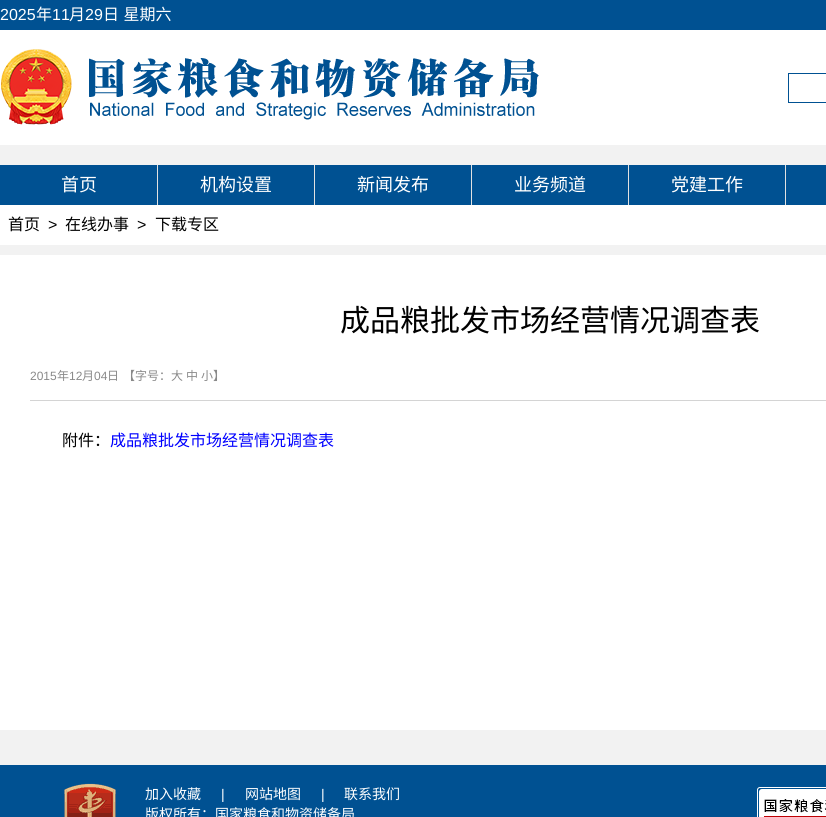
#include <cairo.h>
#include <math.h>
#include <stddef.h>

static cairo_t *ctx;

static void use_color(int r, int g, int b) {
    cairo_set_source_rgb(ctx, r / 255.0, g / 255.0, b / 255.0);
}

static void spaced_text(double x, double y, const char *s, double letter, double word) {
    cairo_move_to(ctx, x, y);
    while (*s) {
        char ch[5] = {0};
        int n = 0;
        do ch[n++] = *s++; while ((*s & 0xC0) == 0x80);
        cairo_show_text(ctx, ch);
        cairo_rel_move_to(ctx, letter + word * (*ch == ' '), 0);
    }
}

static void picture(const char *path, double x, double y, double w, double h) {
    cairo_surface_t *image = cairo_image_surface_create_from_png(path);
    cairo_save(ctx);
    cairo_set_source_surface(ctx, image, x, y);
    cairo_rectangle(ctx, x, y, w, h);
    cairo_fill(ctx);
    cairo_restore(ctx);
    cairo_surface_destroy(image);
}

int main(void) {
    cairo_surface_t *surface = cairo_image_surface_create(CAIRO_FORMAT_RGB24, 826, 817);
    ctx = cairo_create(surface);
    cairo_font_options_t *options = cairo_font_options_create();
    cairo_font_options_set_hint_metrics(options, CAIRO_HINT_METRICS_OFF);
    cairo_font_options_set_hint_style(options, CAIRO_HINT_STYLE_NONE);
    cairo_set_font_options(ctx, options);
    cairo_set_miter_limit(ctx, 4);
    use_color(242, 242, 242);
    cairo_paint(ctx);
    use_color(0, 81, 146);
    cairo_rectangle(ctx, 0, 0, 826, 30);
    cairo_fill(ctx);
    cairo_select_font_face(ctx, "Liberation Sans", CAIRO_FONT_SLANT_NORMAL, CAIRO_FONT_WEIGHT_NORMAL);
    cairo_set_font_size(ctx, 16);
    use_color(255, 255, 255);
    cairo_move_to(ctx, 0, 20);
    cairo_show_text(ctx, "2025");
    cairo_select_font_face(ctx, "Noto Sans CJK SC", CAIRO_FONT_SLANT_NORMAL, CAIRO_FONT_WEIGHT_NORMAL);
    cairo_move_to(ctx, 36, 20);
    cairo_show_text(ctx, "年");
    cairo_select_font_face(ctx, "Liberation Sans", CAIRO_FONT_SLANT_NORMAL, CAIRO_FONT_WEIGHT_NORMAL);
    cairo_move_to(ctx, 52, 20);
    cairo_show_text(ctx, "11");
    cairo_select_font_face(ctx, "Noto Sans CJK SC", CAIRO_FONT_SLANT_NORMAL, CAIRO_FONT_WEIGHT_NORMAL);
    cairo_move_to(ctx, 69, 20);
    cairo_show_text(ctx, "月");
    cairo_select_font_face(ctx, "Liberation Sans", CAIRO_FONT_SLANT_NORMAL, CAIRO_FONT_WEIGHT_NORMAL);
    cairo_move_to(ctx, 85, 20);
    cairo_show_text(ctx, "29");
    cairo_select_font_face(ctx, "Noto Sans CJK SC", CAIRO_FONT_SLANT_NORMAL, CAIRO_FONT_WEIGHT_NORMAL);
    spaced_text(103, 20, "日 星期六", 0, 1);
    cairo_rectangle(ctx, 0, 30, 826, 115);
    cairo_fill(ctx);
    picture("img1.png", 1, 49, 538, 76);
    cairo_rectangle(ctx, 788.5, 73.5, 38, 29);
    use_color(0, 81, 146);
    cairo_set_line_width(ctx, 1);
    cairo_stroke(ctx);
    cairo_rectangle(ctx, 0, 165, 826, 40);
    cairo_fill(ctx);
    use_color(225, 225, 225);
    cairo_rectangle(ctx, 157, 165, 1, 40);
    cairo_fill(ctx);
    cairo_set_font_size(ctx, 18);
    use_color(255, 255, 255);
    cairo_move_to(ctx, 61, 191);
    cairo_show_text(ctx, "首页");
    use_color(225, 225, 225);
    cairo_rectangle(ctx, 314, 165, 1, 40);
    cairo_fill(ctx);
    use_color(255, 255, 255);
    cairo_move_to(ctx, 200, 191);
    cairo_show_text(ctx, "机构设置");
    use_color(225, 225, 225);
    cairo_rectangle(ctx, 471, 165, 1, 40);
    cairo_fill(ctx);
    use_color(255, 255, 255);
    cairo_move_to(ctx, 357, 191);
    cairo_show_text(ctx, "新闻发布");
    use_color(225, 225, 225);
    cairo_rectangle(ctx, 628, 165, 1, 40);
    cairo_fill(ctx);
    use_color(255, 255, 255);
    cairo_move_to(ctx, 514, 191);
    cairo_show_text(ctx, "业务频道");
    use_color(225, 225, 225);
    cairo_rectangle(ctx, 785, 165, 1, 40);
    cairo_fill(ctx);
    use_color(255, 255, 255);
    cairo_move_to(ctx, 671, 191);
    cairo_show_text(ctx, "党建工作");
    cairo_rectangle(ctx, 0, 205, 826, 40);
    cairo_fill(ctx);
    cairo_set_font_size(ctx, 16);
    use_color(0, 0, 0);
    cairo_move_to(ctx, 8, 230);
    cairo_show_text(ctx, "首页");
    cairo_select_font_face(ctx, "Liberation Sans", CAIRO_FONT_SLANT_NORMAL, CAIRO_FONT_WEIGHT_NORMAL);
    cairo_move_to(ctx, 48, 230);
    cairo_show_text(ctx, ">");
    cairo_select_font_face(ctx, "Noto Sans CJK SC", CAIRO_FONT_SLANT_NORMAL, CAIRO_FONT_WEIGHT_NORMAL);
    cairo_move_to(ctx, 65, 230);
    cairo_show_text(ctx, "在线办事");
    cairo_select_font_face(ctx, "Liberation Sans", CAIRO_FONT_SLANT_NORMAL, CAIRO_FONT_WEIGHT_NORMAL);
    cairo_move_to(ctx, 137, 230);
    cairo_show_text(ctx, ">");
    cairo_select_font_face(ctx, "Noto Sans CJK SC", CAIRO_FONT_SLANT_NORMAL, CAIRO_FONT_WEIGHT_NORMAL);
    cairo_move_to(ctx, 155, 230);
    cairo_show_text(ctx, "下载专区");
    use_color(255, 255, 255);
    cairo_rectangle(ctx, 0, 255, 826, 475);
    cairo_fill(ctx);
    cairo_set_font_size(ctx, 30);
    use_color(0, 0, 0);
    cairo_move_to(ctx, 340, 331);
    cairo_show_text(ctx, "成品粮批发市场经营情况调查表");
    cairo_select_font_face(ctx, "Liberation Sans", CAIRO_FONT_SLANT_NORMAL, CAIRO_FONT_WEIGHT_NORMAL);
    cairo_set_font_size(ctx, 12);
    use_color(137, 137, 137);
    cairo_move_to(ctx, 30, 380);
    cairo_show_text(ctx, "2015");
    cairo_select_font_face(ctx, "Noto Sans CJK SC", CAIRO_FONT_SLANT_NORMAL, CAIRO_FONT_WEIGHT_NORMAL);
    cairo_move_to(ctx, 57, 380);
    cairo_show_text(ctx, "年");
    cairo_select_font_face(ctx, "Liberation Sans", CAIRO_FONT_SLANT_NORMAL, CAIRO_FONT_WEIGHT_NORMAL);
    cairo_move_to(ctx, 69, 380);
    cairo_show_text(ctx, "12");
    cairo_select_font_face(ctx, "Noto Sans CJK SC", CAIRO_FONT_SLANT_NORMAL, CAIRO_FONT_WEIGHT_NORMAL);
    cairo_move_to(ctx, 82, 380);
    cairo_show_text(ctx, "月");
    cairo_select_font_face(ctx, "Liberation Sans", CAIRO_FONT_SLANT_NORMAL, CAIRO_FONT_WEIGHT_NORMAL);
    cairo_move_to(ctx, 94, 380);
    cairo_show_text(ctx, "04");
    cairo_select_font_face(ctx, "Noto Sans CJK SC", CAIRO_FONT_SLANT_NORMAL, CAIRO_FONT_WEIGHT_NORMAL);
    cairo_move_to(ctx, 107, 380);
    cairo_show_text(ctx, "日");
    cairo_move_to(ctx, 123, 380);
    cairo_show_text(ctx, "【字号：大");
    cairo_move_to(ctx, 186, 380);
    cairo_show_text(ctx, "中");
    cairo_move_to(ctx, 201, 380);
    cairo_show_text(ctx, "小】");
    use_color(212, 212, 212);
    cairo_rectangle(ctx, 30, 400, 796, 1);
    cairo_fill(ctx);
    cairo_set_font_size(ctx, 16);
    use_color(0, 0, 0);
    cairo_move_to(ctx, 62, 446);
    cairo_show_text(ctx, "附件：");
    use_color(0, 0, 255);
    cairo_move_to(ctx, 110, 446);
    cairo_show_text(ctx, "成品粮批发市场经营情况调查表");
    use_color(0, 81, 146);
    cairo_rectangle(ctx, 0, 765, 826, 52);
    cairo_fill(ctx);
    picture("img2.png", 64, 783, 52, 34);
    cairo_set_font_size(ctx, 14);
    use_color(255, 255, 255);
    cairo_move_to(ctx, 145, 799);
    cairo_show_text(ctx, "加入收藏");
    cairo_select_font_face(ctx, "Liberation Sans", CAIRO_FONT_SLANT_NORMAL, CAIRO_FONT_WEIGHT_NORMAL);
    cairo_move_to(ctx, 221, 799);
    cairo_show_text(ctx, "|");
    cairo_select_font_face(ctx, "Noto Sans CJK SC", CAIRO_FONT_SLANT_NORMAL, CAIRO_FONT_WEIGHT_NORMAL);
    cairo_move_to(ctx, 245, 799);
    cairo_show_text(ctx, "网站地图");
    cairo_select_font_face(ctx, "Liberation Sans", CAIRO_FONT_SLANT_NORMAL, CAIRO_FONT_WEIGHT_NORMAL);
    cairo_move_to(ctx, 321, 799);
    cairo_show_text(ctx, "|");
    cairo_select_font_face(ctx, "Noto Sans CJK SC", CAIRO_FONT_SLANT_NORMAL, CAIRO_FONT_WEIGHT_NORMAL);
    cairo_move_to(ctx, 344, 799);
    cairo_show_text(ctx, "联系我们");
    cairo_move_to(ctx, 145, 819);
    cairo_show_text(ctx, "版权所有：国家粮食和物资储备局");
    picture("img3.png", 757, 787, 69, 30);
    cairo_surface_write_to_png(surface, "result.png");
    cairo_font_options_destroy(options);
    cairo_destroy(ctx);
    cairo_surface_destroy(surface);
    return 0;
}
